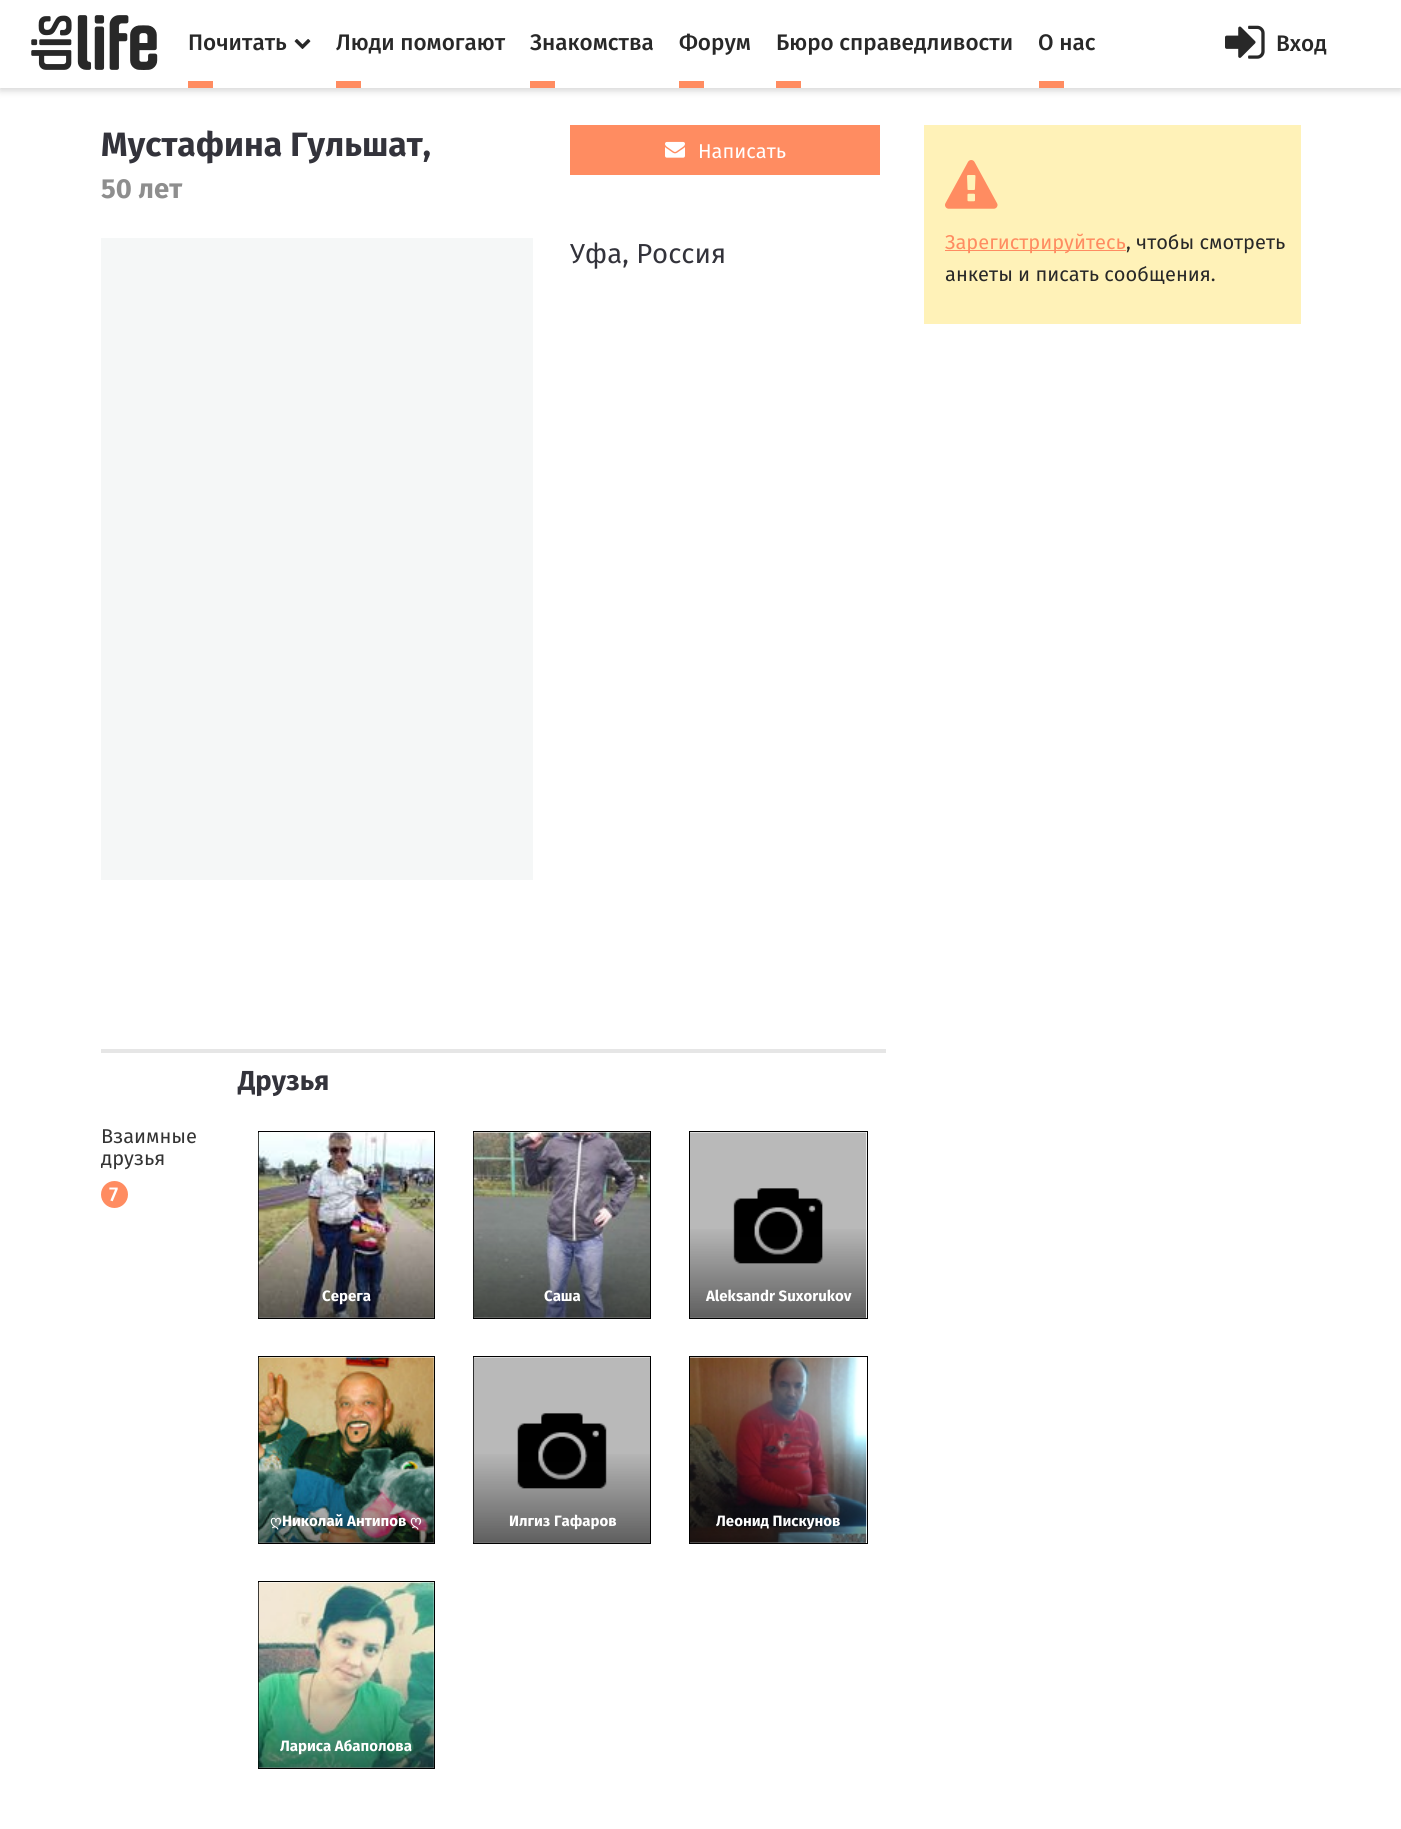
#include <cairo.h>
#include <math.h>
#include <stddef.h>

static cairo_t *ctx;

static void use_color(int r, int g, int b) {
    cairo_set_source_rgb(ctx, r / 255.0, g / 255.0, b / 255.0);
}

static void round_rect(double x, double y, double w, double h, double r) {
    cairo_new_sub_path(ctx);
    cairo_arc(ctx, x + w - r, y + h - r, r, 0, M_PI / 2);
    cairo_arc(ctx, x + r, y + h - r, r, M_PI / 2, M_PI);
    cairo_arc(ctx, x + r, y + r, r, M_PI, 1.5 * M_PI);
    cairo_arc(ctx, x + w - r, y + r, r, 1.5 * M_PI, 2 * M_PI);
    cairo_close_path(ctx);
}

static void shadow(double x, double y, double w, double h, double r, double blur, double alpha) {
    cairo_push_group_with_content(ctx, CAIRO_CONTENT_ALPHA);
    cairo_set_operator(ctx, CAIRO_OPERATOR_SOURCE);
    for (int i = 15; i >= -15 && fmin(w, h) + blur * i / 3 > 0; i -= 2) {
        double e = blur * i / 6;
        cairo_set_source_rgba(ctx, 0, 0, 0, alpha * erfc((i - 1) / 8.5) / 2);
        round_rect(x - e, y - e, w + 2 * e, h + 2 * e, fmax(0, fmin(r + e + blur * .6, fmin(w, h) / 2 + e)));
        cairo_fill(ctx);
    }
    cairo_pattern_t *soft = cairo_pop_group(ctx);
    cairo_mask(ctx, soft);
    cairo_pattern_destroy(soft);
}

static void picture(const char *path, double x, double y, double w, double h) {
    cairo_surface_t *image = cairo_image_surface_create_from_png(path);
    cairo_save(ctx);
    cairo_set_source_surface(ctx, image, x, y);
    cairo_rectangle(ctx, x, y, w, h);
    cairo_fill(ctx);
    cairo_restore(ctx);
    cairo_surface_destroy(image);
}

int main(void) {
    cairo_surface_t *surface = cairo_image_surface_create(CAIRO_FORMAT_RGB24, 1401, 1829);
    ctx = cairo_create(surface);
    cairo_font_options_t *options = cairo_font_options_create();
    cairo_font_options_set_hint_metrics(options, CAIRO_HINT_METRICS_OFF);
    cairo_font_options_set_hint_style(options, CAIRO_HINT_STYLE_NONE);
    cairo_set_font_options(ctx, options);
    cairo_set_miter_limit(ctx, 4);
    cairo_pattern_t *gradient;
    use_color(255, 255, 255);
    cairo_paint(ctx);
    use_color(159, 159, 159);
    shadow(0, 3, 1401, 87, 0, 4, 0.5);
    use_color(255, 255, 255);
    cairo_rectangle(ctx, 0, 0, 1401, 88);
    cairo_fill(ctx);
    picture("img1.png", 31, 15, 127, 55);
    cairo_select_font_face(ctx, "Fira Sans Medium", CAIRO_FONT_SLANT_NORMAL, CAIRO_FONT_WEIGHT_NORMAL);
    cairo_set_font_size(ctx, 22.5);
    use_color(40, 40, 40);
    cairo_move_to(ctx, 188, 50);
    cairo_show_text(ctx, "Почитать");
    use_color(255, 140, 97);
    cairo_rectangle(ctx, 188, 81, 25, 7);
    cairo_fill(ctx);
    picture("img2.png", 294, 39, 17, 10);
    use_color(40, 40, 40);
    cairo_move_to(ctx, 336, 50);
    cairo_show_text(ctx, "Люди помогают");
    use_color(255, 140, 97);
    cairo_rectangle(ctx, 336, 81, 25, 7);
    cairo_fill(ctx);
    use_color(40, 40, 40);
    cairo_move_to(ctx, 530, 50);
    cairo_show_text(ctx, "Знакомства");
    use_color(255, 140, 97);
    cairo_rectangle(ctx, 530, 81, 25, 7);
    cairo_fill(ctx);
    use_color(40, 40, 40);
    cairo_move_to(ctx, 679, 50);
    cairo_show_text(ctx, "Форум");
    use_color(255, 140, 97);
    cairo_rectangle(ctx, 679, 81, 25, 7);
    cairo_fill(ctx);
    use_color(40, 40, 40);
    cairo_move_to(ctx, 776, 50);
    cairo_show_text(ctx, "Бюро справедливости");
    use_color(255, 140, 97);
    cairo_rectangle(ctx, 776, 81, 25, 7);
    cairo_fill(ctx);
    use_color(40, 40, 40);
    cairo_move_to(ctx, 1038, 50);
    cairo_show_text(ctx, "О нас");
    use_color(255, 140, 97);
    cairo_rectangle(ctx, 1039, 81, 25, 7);
    cairo_fill(ctx);
    picture("img3.png", 1225, 25, 40, 34);
    use_color(40, 40, 40);
    cairo_move_to(ctx, 1276, 51);
    cairo_show_text(ctx, "Вход");
    use_color(230, 230, 230);
    cairo_rectangle(ctx, 101, 1049, 785, 4);
    cairo_fill(ctx);
    cairo_select_font_face(ctx, "Fira Sans", CAIRO_FONT_SLANT_NORMAL, CAIRO_FONT_WEIGHT_BOLD);
    cairo_set_font_size(ctx, 33.75);
    use_color(51, 51, 59);
    cairo_move_to(ctx, 101, 156);
    cairo_show_text(ctx, "Мустафина Гульшат,");
    cairo_set_font_size(ctx, 27.5);
    use_color(142, 142, 142);
    cairo_move_to(ctx, 101, 198);
    cairo_show_text(ctx, "50 лет");
    use_color(255, 140, 97);
    cairo_rectangle(ctx, 570, 125, 310, 50);
    cairo_fill(ctx);
    picture("img4.png", 665, 141, 20, 17);
    cairo_select_font_face(ctx, "Fira Sans", CAIRO_FONT_SLANT_NORMAL, CAIRO_FONT_WEIGHT_NORMAL);
    cairo_set_font_size(ctx, 20);
    use_color(255, 255, 255);
    cairo_move_to(ctx, 698, 158);
    cairo_show_text(ctx, "Написать");
    use_color(245, 247, 247);
    cairo_rectangle(ctx, 101, 238, 432, 642);
    cairo_fill(ctx);
    cairo_set_font_size(ctx, 27.5);
    use_color(51, 51, 59);
    cairo_move_to(ctx, 570, 263);
    cairo_show_text(ctx, "Уфа, Россия");
    cairo_select_font_face(ctx, "Fira Sans", CAIRO_FONT_SLANT_NORMAL, CAIRO_FONT_WEIGHT_BOLD);
    cairo_move_to(ctx, 238, 1090);
    cairo_show_text(ctx, "Друзья");
    cairo_select_font_face(ctx, "Fira Sans", CAIRO_FONT_SLANT_NORMAL, CAIRO_FONT_WEIGHT_NORMAL);
    cairo_set_font_size(ctx, 20);
    use_color(51, 51, 51);
    cairo_move_to(ctx, 101, 1143);
    cairo_show_text(ctx, "Взаимные");
    cairo_move_to(ctx, 101, 1165);
    cairo_show_text(ctx, "друзья");
    use_color(255, 140, 97);
    cairo_new_path(ctx);
    cairo_arc(ctx, 114.5, 1194.5, 13.5, 0, 2 * M_PI);
    cairo_fill(ctx);
    cairo_select_font_face(ctx, "Fira Sans Medium", CAIRO_FONT_SLANT_NORMAL, CAIRO_FONT_WEIGHT_NORMAL);
    use_color(255, 255, 255);
    cairo_move_to(ctx, 109, 1201);
    cairo_show_text(ctx, "7");
    cairo_rectangle(ctx, 258.5, 1131.5, 176, 187);
    use_color(0, 0, 0);
    cairo_set_line_width(ctx, 1);
    cairo_stroke(ctx);
    picture("img5.png", 258, 1132, 176, 186);
    gradient = cairo_pattern_create_linear(346, 1318, 346, 1133);
    cairo_pattern_add_color_stop_rgba(gradient, 0, 0.031, 0.031, 0.031, 0.51);
    cairo_pattern_add_color_stop_rgba(gradient, 0.5, 0.031, 0.031, 0.031, 0);
    cairo_pattern_add_color_stop_rgba(gradient, 1, 0, 0, 0, 0);
    cairo_set_source(ctx, gradient);
    cairo_pattern_destroy(gradient);
    cairo_rectangle(ctx, 259, 1229, 175, 89);
    cairo_fill(ctx);
    cairo_select_font_face(ctx, "Fira Sans", CAIRO_FONT_SLANT_NORMAL, CAIRO_FONT_WEIGHT_BOLD);
    cairo_set_font_size(ctx, 15);
    use_color(255, 255, 255);
    cairo_move_to(ctx, 322, 1301);
    cairo_show_text(ctx, "Серега");
    cairo_rectangle(ctx, 473.5, 1131.5, 177, 187);
    use_color(0, 0, 0);
    cairo_stroke(ctx);
    picture("img6.png", 473, 1132, 177, 186);
    gradient = cairo_pattern_create_linear(562, 1318, 562, 1133);
    cairo_pattern_add_color_stop_rgba(gradient, 0, 0.031, 0.031, 0.031, 0.51);
    cairo_pattern_add_color_stop_rgba(gradient, 0.5, 0.031, 0.031, 0.031, 0);
    cairo_pattern_add_color_stop_rgba(gradient, 1, 0, 0, 0, 0);
    cairo_set_source(ctx, gradient);
    cairo_pattern_destroy(gradient);
    cairo_rectangle(ctx, 474, 1229, 176, 89);
    cairo_fill(ctx);
    use_color(255, 255, 255);
    cairo_move_to(ctx, 544, 1301);
    cairo_show_text(ctx, "Саша");
    cairo_rectangle(ctx, 689.5, 1131.5, 178, 187);
    use_color(0, 0, 0);
    cairo_stroke(ctx);
    picture("img7.png", 690, 1132, 177, 186);
    gradient = cairo_pattern_create_linear(778, 1318, 778, 1133);
    cairo_pattern_add_color_stop_rgba(gradient, 0, 0.031, 0.031, 0.031, 0.51);
    cairo_pattern_add_color_stop_rgba(gradient, 0.5, 0.031, 0.031, 0.031, 0);
    cairo_pattern_add_color_stop_rgba(gradient, 1, 0, 0, 0, 0);
    cairo_set_source(ctx, gradient);
    cairo_pattern_destroy(gradient);
    cairo_rectangle(ctx, 690, 1229, 176, 89);
    cairo_fill(ctx);
    use_color(255, 255, 255);
    cairo_move_to(ctx, 706, 1301);
    cairo_show_text(ctx, "Aleksandr Suxorukov");
    cairo_rectangle(ctx, 258.5, 1356.5, 176, 187);
    use_color(0, 0, 0);
    cairo_stroke(ctx);
    picture("img8.png", 258, 1357, 176, 186);
    gradient = cairo_pattern_create_linear(346, 1543, 346, 1358);
    cairo_pattern_add_color_stop_rgba(gradient, 0, 0.031, 0.031, 0.031, 0.51);
    cairo_pattern_add_color_stop_rgba(gradient, 0.5, 0.031, 0.031, 0.031, 0);
    cairo_pattern_add_color_stop_rgba(gradient, 1, 0, 0, 0, 0);
    cairo_set_source(ctx, gradient);
    cairo_pattern_destroy(gradient);
    cairo_rectangle(ctx, 259, 1454, 175, 89);
    cairo_fill(ctx);
    cairo_select_font_face(ctx, "DejaVu Sans", CAIRO_FONT_SLANT_NORMAL, CAIRO_FONT_WEIGHT_NORMAL);
    use_color(255, 255, 255);
    cairo_move_to(ctx, 270, 1526);
    cairo_show_text(ctx, "ღ");
    cairo_select_font_face(ctx, "Fira Sans", CAIRO_FONT_SLANT_NORMAL, CAIRO_FONT_WEIGHT_BOLD);
    cairo_move_to(ctx, 282, 1526);
    cairo_show_text(ctx, "Николай Антипов");
    cairo_select_font_face(ctx, "DejaVu Sans", CAIRO_FONT_SLANT_NORMAL, CAIRO_FONT_WEIGHT_NORMAL);
    cairo_move_to(ctx, 410, 1526);
    cairo_show_text(ctx, "ღ");
    cairo_rectangle(ctx, 473.5, 1356.5, 177, 187);
    use_color(0, 0, 0);
    cairo_stroke(ctx);
    picture("img9.png", 473, 1357, 177, 186);
    gradient = cairo_pattern_create_linear(562, 1543, 562, 1358);
    cairo_pattern_add_color_stop_rgba(gradient, 0, 0.031, 0.031, 0.031, 0.51);
    cairo_pattern_add_color_stop_rgba(gradient, 0.5, 0.031, 0.031, 0.031, 0);
    cairo_pattern_add_color_stop_rgba(gradient, 1, 0, 0, 0, 0);
    cairo_set_source(ctx, gradient);
    cairo_pattern_destroy(gradient);
    cairo_rectangle(ctx, 474, 1454, 176, 89);
    cairo_fill(ctx);
    cairo_select_font_face(ctx, "Fira Sans", CAIRO_FONT_SLANT_NORMAL, CAIRO_FONT_WEIGHT_BOLD);
    use_color(255, 255, 255);
    cairo_move_to(ctx, 509, 1526);
    cairo_show_text(ctx, "Илгиз Гафаров");
    cairo_rectangle(ctx, 689.5, 1356.5, 178, 187);
    use_color(0, 0, 0);
    cairo_stroke(ctx);
    picture("img10.png", 690, 1357, 177, 186);
    gradient = cairo_pattern_create_linear(778, 1543, 778, 1358);
    cairo_pattern_add_color_stop_rgba(gradient, 0, 0.031, 0.031, 0.031, 0.51);
    cairo_pattern_add_color_stop_rgba(gradient, 0.5, 0.031, 0.031, 0.031, 0);
    cairo_pattern_add_color_stop_rgba(gradient, 1, 0, 0, 0, 0);
    cairo_set_source(ctx, gradient);
    cairo_pattern_destroy(gradient);
    cairo_rectangle(ctx, 690, 1454, 176, 89);
    cairo_fill(ctx);
    use_color(255, 255, 255);
    cairo_move_to(ctx, 716, 1526);
    cairo_show_text(ctx, "Леонид Пискунов");
    cairo_rectangle(ctx, 258.5, 1581.5, 176, 187);
    use_color(0, 0, 0);
    cairo_stroke(ctx);
    picture("img11.png", 258, 1582, 176, 186);
    gradient = cairo_pattern_create_linear(346, 1768, 346, 1583);
    cairo_pattern_add_color_stop_rgba(gradient, 0, 0.031, 0.031, 0.031, 0.51);
    cairo_pattern_add_color_stop_rgba(gradient, 0.5, 0.031, 0.031, 0.031, 0);
    cairo_pattern_add_color_stop_rgba(gradient, 1, 0, 0, 0, 0);
    cairo_set_source(ctx, gradient);
    cairo_pattern_destroy(gradient);
    cairo_rectangle(ctx, 259, 1679, 175, 89);
    cairo_fill(ctx);
    use_color(255, 255, 255);
    cairo_move_to(ctx, 280, 1751);
    cairo_show_text(ctx, "Лариса Абаполова");
    use_color(255, 242, 184);
    cairo_rectangle(ctx, 924, 125, 377, 199);
    cairo_fill(ctx);
    picture("img12.png", 945, 160, 53, 49);
    use_color(255, 140, 97);
    cairo_rectangle(ctx, 945, 250, 181, 1);
    cairo_fill(ctx);
    cairo_select_font_face(ctx, "Fira Sans", CAIRO_FONT_SLANT_NORMAL, CAIRO_FONT_WEIGHT_NORMAL);
    cairo_set_font_size(ctx, 20);
    cairo_move_to(ctx, 945, 249);
    cairo_show_text(ctx, "Зарегистрируйтесь");
    use_color(40, 40, 40);
    cairo_move_to(ctx, 1126, 249);
    cairo_show_text(ctx, ", чтобы смотреть");
    cairo_move_to(ctx, 945, 281);
    cairo_show_text(ctx, "анкеты и писать сообщения.");
    cairo_surface_write_to_png(surface, "result.png");
    cairo_font_options_destroy(options);
    cairo_destroy(ctx);
    cairo_surface_destroy(surface);
    return 0;
}
